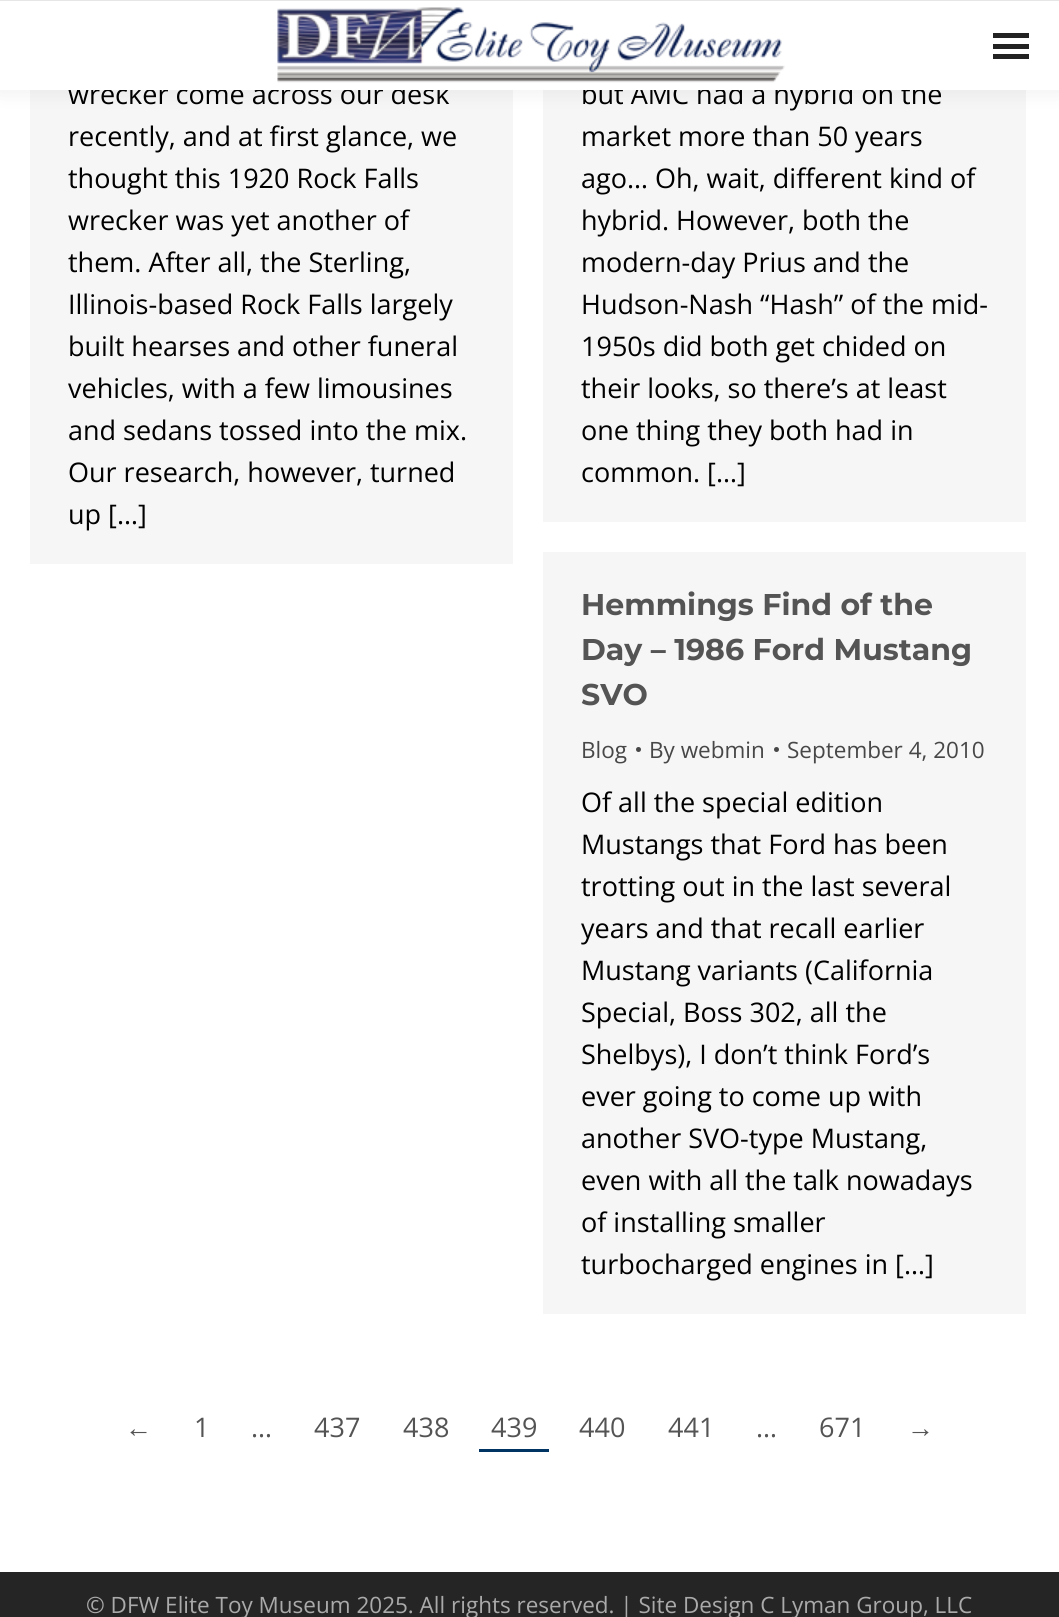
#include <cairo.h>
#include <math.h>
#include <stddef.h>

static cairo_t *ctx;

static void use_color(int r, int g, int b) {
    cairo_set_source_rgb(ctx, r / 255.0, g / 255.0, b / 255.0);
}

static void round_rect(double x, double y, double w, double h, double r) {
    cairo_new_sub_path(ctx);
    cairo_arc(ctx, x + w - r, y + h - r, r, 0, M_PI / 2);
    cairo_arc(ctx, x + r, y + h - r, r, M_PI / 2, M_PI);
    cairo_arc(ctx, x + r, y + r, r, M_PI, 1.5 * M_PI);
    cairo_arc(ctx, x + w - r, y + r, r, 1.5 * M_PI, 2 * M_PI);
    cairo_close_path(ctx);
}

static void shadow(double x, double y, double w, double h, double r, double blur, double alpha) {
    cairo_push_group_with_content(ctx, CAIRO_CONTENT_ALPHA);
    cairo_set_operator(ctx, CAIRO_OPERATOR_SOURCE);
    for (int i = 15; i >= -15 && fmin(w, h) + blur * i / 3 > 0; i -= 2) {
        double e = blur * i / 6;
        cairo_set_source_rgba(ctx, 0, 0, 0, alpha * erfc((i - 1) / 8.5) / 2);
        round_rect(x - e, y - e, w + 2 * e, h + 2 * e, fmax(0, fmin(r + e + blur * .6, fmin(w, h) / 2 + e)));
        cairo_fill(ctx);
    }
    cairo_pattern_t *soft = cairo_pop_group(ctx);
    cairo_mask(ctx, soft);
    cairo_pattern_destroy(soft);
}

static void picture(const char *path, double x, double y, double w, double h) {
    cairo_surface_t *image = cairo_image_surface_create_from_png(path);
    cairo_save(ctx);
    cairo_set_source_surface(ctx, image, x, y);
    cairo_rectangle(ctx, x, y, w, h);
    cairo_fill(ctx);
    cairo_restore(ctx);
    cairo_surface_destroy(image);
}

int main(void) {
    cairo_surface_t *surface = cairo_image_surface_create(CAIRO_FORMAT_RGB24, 1059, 1617);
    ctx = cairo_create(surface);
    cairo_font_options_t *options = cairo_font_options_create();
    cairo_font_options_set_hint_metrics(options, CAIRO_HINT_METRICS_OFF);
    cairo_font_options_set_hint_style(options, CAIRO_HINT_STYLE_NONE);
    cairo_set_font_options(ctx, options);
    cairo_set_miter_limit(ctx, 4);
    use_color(255, 255, 255);
    cairo_paint(ctx);
    use_color(246, 246, 246);
    cairo_rectangle(ctx, 30, 90, 483, 474);
    cairo_fill(ctx);
    cairo_rectangle(ctx, 543, 90, 483, 432);
    cairo_fill(ctx);
    use_color(0, 0, 0);
    shadow(-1, -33, 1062, 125, 0, 11, 0.07);
    cairo_select_font_face(ctx, "Open Sans", CAIRO_FONT_SLANT_NORMAL, CAIRO_FONT_WEIGHT_NORMAL);
    cairo_set_font_size(ctx, 27);
    use_color(0, 0, 0);
    cairo_move_to(ctx, 68, 104);
    cairo_show_text(ctx, "wrecker come across our desk");
    cairo_move_to(ctx, 581, 104);
    cairo_show_text(ctx, "but AMC had a hybrid on the");
    use_color(255, 255, 255);
    cairo_rectangle(ctx, 0, 1, 1059, 89);
    cairo_fill(ctx);
    use_color(230, 230, 230);
    cairo_rectangle(ctx, 0, 0, 1059, 1);
    cairo_fill(ctx);
    picture("img1.png", 277, 7, 508, 76);
    use_color(34, 34, 34);
    cairo_rectangle(ctx, 993, 33, 36, 5);
    cairo_fill(ctx);
    cairo_rectangle(ctx, 993, 44, 36, 5);
    cairo_fill(ctx);
    cairo_rectangle(ctx, 993, 54, 36, 5);
    cairo_fill(ctx);
    use_color(0, 0, 0);
    cairo_move_to(ctx, 68, 146);
    cairo_show_text(ctx, "recently, and at first glance, we");
    cairo_move_to(ctx, 68, 188);
    cairo_show_text(ctx, "thought this 1920 Rock Falls");
    cairo_move_to(ctx, 68, 230);
    cairo_show_text(ctx, "wrecker was yet another of");
    cairo_move_to(ctx, 68, 272);
    cairo_show_text(ctx, "them. After all, the Sterling,");
    cairo_move_to(ctx, 68, 314);
    cairo_show_text(ctx, "Illinois-based Rock Falls largely");
    cairo_move_to(ctx, 68, 356);
    cairo_show_text(ctx, "built hearses and other funeral");
    cairo_move_to(ctx, 68, 398);
    cairo_show_text(ctx, "vehicles, with a few limousines");
    cairo_move_to(ctx, 68, 440);
    cairo_show_text(ctx, "and sedans tossed into the mix.");
    cairo_move_to(ctx, 68, 482);
    cairo_show_text(ctx, "Our research, however, turned");
    cairo_move_to(ctx, 68, 524);
    cairo_show_text(ctx, "up […]");
    cairo_move_to(ctx, 581, 146);
    cairo_show_text(ctx, "market more than 50 years");
    cairo_move_to(ctx, 581, 188);
    cairo_show_text(ctx, "ago… Oh, wait, different kind of");
    cairo_move_to(ctx, 581, 230);
    cairo_show_text(ctx, "hybrid. However, both the");
    cairo_move_to(ctx, 581, 272);
    cairo_show_text(ctx, "modern-day Prius and the");
    cairo_move_to(ctx, 581, 314);
    cairo_show_text(ctx, "Hudson-Nash “Hash” of the mid-");
    cairo_move_to(ctx, 581, 356);
    cairo_show_text(ctx, "1950s did both get chided on");
    cairo_move_to(ctx, 581, 398);
    cairo_show_text(ctx, "their looks, so there’s at least");
    cairo_move_to(ctx, 581, 440);
    cairo_show_text(ctx, "one thing they both had in");
    cairo_move_to(ctx, 581, 482);
    cairo_show_text(ctx, "common. […]");
    use_color(246, 246, 246);
    cairo_rectangle(ctx, 543, 552, 483, 762);
    cairo_fill(ctx);
    cairo_select_font_face(ctx, "Montserrat", CAIRO_FONT_SLANT_NORMAL, CAIRO_FONT_WEIGHT_BOLD);
    cairo_set_font_size(ctx, 30);
    use_color(84, 84, 84);
    cairo_move_to(ctx, 581, 615);
    cairo_show_text(ctx, "Hemmings Find of the");
    cairo_move_to(ctx, 581, 660);
    cairo_show_text(ctx, "Day – 1986 Ford Mustang");
    cairo_move_to(ctx, 581, 705);
    cairo_show_text(ctx, "SVO");
    cairo_select_font_face(ctx, "Open Sans", CAIRO_FONT_SLANT_NORMAL, CAIRO_FONT_WEIGHT_NORMAL);
    cairo_set_font_size(ctx, 22.5);
    use_color(71, 71, 71);
    cairo_move_to(ctx, 581, 758);
    cairo_show_text(ctx, "Blog");
    cairo_new_path(ctx);
    cairo_arc(ctx, 638.5, 749.5, 2.5, 0, 2 * M_PI);
    cairo_fill(ctx);
    cairo_move_to(ctx, 649, 758);
    cairo_show_text(ctx, "By webmin");
    cairo_new_path(ctx);
    cairo_arc(ctx, 776.5, 749.5, 2.5, 0, 2 * M_PI);
    cairo_fill(ctx);
    cairo_move_to(ctx, 787, 758);
    cairo_show_text(ctx, "September 4, 2010");
    cairo_set_font_size(ctx, 27);
    use_color(0, 0, 0);
    cairo_move_to(ctx, 581, 812);
    cairo_show_text(ctx, "Of all the special edition");
    cairo_move_to(ctx, 581, 854);
    cairo_show_text(ctx, "Mustangs that Ford has been");
    cairo_move_to(ctx, 581, 896);
    cairo_show_text(ctx, "trotting out in the last several");
    cairo_move_to(ctx, 581, 938);
    cairo_show_text(ctx, "years and that recall earlier");
    cairo_move_to(ctx, 581, 980);
    cairo_show_text(ctx, "Mustang variants (California");
    cairo_move_to(ctx, 581, 1022);
    cairo_show_text(ctx, "Special, Boss 302, all the");
    cairo_move_to(ctx, 581, 1064);
    cairo_show_text(ctx, "Shelbys), I don’t think Ford’s");
    cairo_move_to(ctx, 581, 1106);
    cairo_show_text(ctx, "ever going to come up with");
    cairo_move_to(ctx, 581, 1148);
    cairo_show_text(ctx, "another SVO-type Mustang,");
    cairo_move_to(ctx, 581, 1190);
    cairo_show_text(ctx, "even with all the talk nowadays");
    cairo_move_to(ctx, 581, 1232);
    cairo_show_text(ctx, "of installing smaller");
    cairo_move_to(ctx, 581, 1274);
    cairo_show_text(ctx, "turbocharged engines in […]");
    cairo_select_font_face(ctx, "Liberation Sans", CAIRO_FONT_SLANT_NORMAL, CAIRO_FONT_WEIGHT_NORMAL);
    use_color(84, 84, 84);
    cairo_move_to(ctx, 125, 1437);
    cairo_show_text(ctx, "←");
    cairo_select_font_face(ctx, "Open Sans", CAIRO_FONT_SLANT_NORMAL, CAIRO_FONT_WEIGHT_NORMAL);
    cairo_move_to(ctx, 194, 1437);
    cairo_show_text(ctx, "1");
    cairo_move_to(ctx, 251, 1437);
    cairo_show_text(ctx, "…");
    cairo_move_to(ctx, 314, 1437);
    cairo_show_text(ctx, "437");
    cairo_move_to(ctx, 403, 1437);
    cairo_show_text(ctx, "438");
    cairo_move_to(ctx, 491, 1437);
    cairo_show_text(ctx, "439");
    use_color(0, 53, 99);
    cairo_rectangle(ctx, 479, 1449, 70, 3);
    cairo_fill(ctx);
    use_color(84, 84, 84);
    cairo_move_to(ctx, 579, 1437);
    cairo_show_text(ctx, "440");
    cairo_move_to(ctx, 668, 1437);
    cairo_show_text(ctx, "441");
    cairo_move_to(ctx, 756, 1437);
    cairo_show_text(ctx, "…");
    cairo_move_to(ctx, 819, 1437);
    cairo_show_text(ctx, "671");
    cairo_select_font_face(ctx, "Liberation Sans", CAIRO_FONT_SLANT_NORMAL, CAIRO_FONT_WEIGHT_NORMAL);
    cairo_move_to(ctx, 907, 1437);
    cairo_show_text(ctx, "→");
    use_color(37, 37, 37);
    cairo_rectangle(ctx, 0, 1572, 1059, 45);
    cairo_fill(ctx);
    cairo_select_font_face(ctx, "Open Sans", CAIRO_FONT_SLANT_NORMAL, CAIRO_FONT_WEIGHT_NORMAL);
    cairo_set_font_size(ctx, 22.5);
    use_color(170, 170, 170);
    cairo_move_to(ctx, 86, 1613);
    cairo_show_text(ctx, "© DFW Elite Toy Museum 2025. All rights reserved. | Site Design C Lyman Group, LLC");
    cairo_surface_write_to_png(surface, "result.png");
    cairo_font_options_destroy(options);
    cairo_destroy(ctx);
    cairo_surface_destroy(surface);
    return 0;
}
